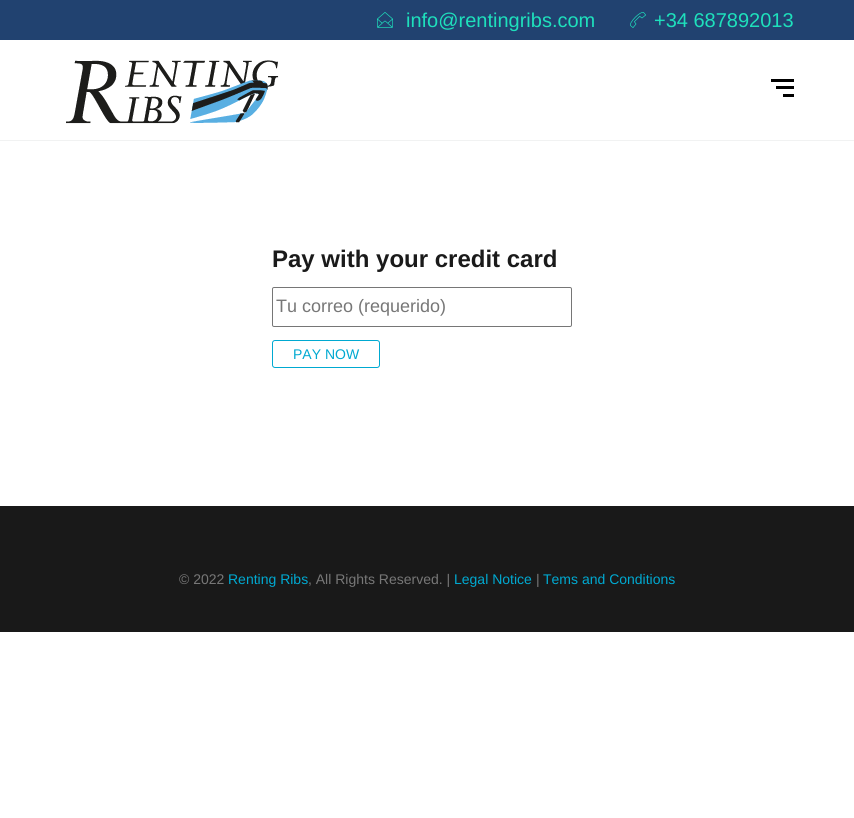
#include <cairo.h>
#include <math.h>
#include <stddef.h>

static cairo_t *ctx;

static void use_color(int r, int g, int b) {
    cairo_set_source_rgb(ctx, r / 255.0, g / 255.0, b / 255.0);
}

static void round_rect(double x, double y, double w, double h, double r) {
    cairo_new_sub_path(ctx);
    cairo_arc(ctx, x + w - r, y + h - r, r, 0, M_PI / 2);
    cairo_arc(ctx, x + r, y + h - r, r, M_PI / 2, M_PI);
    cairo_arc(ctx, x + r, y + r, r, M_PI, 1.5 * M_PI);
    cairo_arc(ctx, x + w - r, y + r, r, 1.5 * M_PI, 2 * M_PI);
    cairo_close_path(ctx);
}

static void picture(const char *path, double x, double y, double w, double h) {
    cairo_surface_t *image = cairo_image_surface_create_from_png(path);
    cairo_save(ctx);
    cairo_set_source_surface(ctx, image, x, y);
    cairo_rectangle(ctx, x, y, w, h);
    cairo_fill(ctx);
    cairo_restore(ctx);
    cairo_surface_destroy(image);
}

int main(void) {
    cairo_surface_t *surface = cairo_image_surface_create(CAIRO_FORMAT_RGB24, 854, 818);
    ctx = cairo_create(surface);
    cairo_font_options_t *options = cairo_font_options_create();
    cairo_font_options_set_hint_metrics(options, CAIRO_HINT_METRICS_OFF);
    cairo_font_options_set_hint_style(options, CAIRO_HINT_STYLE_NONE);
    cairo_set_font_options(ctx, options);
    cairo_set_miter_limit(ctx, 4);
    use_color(255, 255, 255);
    cairo_paint(ctx);
    use_color(33, 66, 112);
    cairo_rectangle(ctx, 0, 0, 854, 40);
    cairo_fill(ctx);
    picture("img1.png", 377, 12, 16, 16);
    cairo_select_font_face(ctx, "Liberation Sans", CAIRO_FONT_SLANT_NORMAL, CAIRO_FONT_WEIGHT_NORMAL);
    cairo_set_font_size(ctx, 20);
    use_color(30, 224, 188);
    cairo_move_to(ctx, 406, 27);
    cairo_show_text(ctx, "info@rentingribs.com");
    picture("img2.png", 630, 12, 16, 16);
    cairo_move_to(ctx, 654, 27);
    cairo_show_text(ctx, "+34 687892013");
    use_color(241, 242, 242);
    cairo_rectangle(ctx, 0, 140, 854, 1);
    cairo_fill(ctx);
    picture("img3.png", 66, 60, 213, 64);
    use_color(0, 0, 0);
    cairo_rectangle(ctx, 776, 86, 18, 3);
    cairo_fill(ctx);
    cairo_rectangle(ctx, 771, 79, 23, 3);
    cairo_fill(ctx);
    cairo_rectangle(ctx, 783, 94, 11, 3);
    cairo_fill(ctx);
    cairo_select_font_face(ctx, "Liberation Sans", CAIRO_FONT_SLANT_NORMAL, CAIRO_FONT_WEIGHT_BOLD);
    cairo_set_font_size(ctx, 24);
    use_color(26, 26, 26);
    cairo_move_to(ctx, 272, 267);
    cairo_show_text(ctx, "Pay with your credit card");
    round_rect(272.5, 287.5, 299, 39, 1.5);
    use_color(118, 118, 118);
    cairo_set_line_width(ctx, 1);
    cairo_stroke(ctx);
    cairo_select_font_face(ctx, "Liberation Sans", CAIRO_FONT_SLANT_NORMAL, CAIRO_FONT_WEIGHT_NORMAL);
    cairo_set_font_size(ctx, 18);
    use_color(119, 119, 119);
    cairo_move_to(ctx, 276, 312);
    cairo_show_text(ctx, "Tu correo (requerido)");
    round_rect(272.5, 340.5, 107, 27, 2.5);
    use_color(0, 169, 209);
    cairo_stroke(ctx);
    cairo_set_font_size(ctx, 14);
    cairo_move_to(ctx, 293, 359);
    cairo_show_text(ctx, "PAY NOW");
    use_color(25, 25, 25);
    cairo_rectangle(ctx, 0, 506, 854, 126);
    cairo_fill(ctx);
    use_color(119, 119, 119);
    cairo_move_to(ctx, 179, 584);
    cairo_show_text(ctx, "© 2022");
    use_color(0, 169, 209);
    cairo_move_to(ctx, 228, 584);
    cairo_show_text(ctx, "Renting Ribs");
    use_color(119, 119, 119);
    cairo_move_to(ctx, 308, 584);
    cairo_show_text(ctx, ", All Rights Reserved. |");
    use_color(0, 169, 209);
    cairo_move_to(ctx, 454, 584);
    cairo_show_text(ctx, "Legal Notice");
    use_color(119, 119, 119);
    cairo_move_to(ctx, 536, 584);
    cairo_show_text(ctx, "|");
    use_color(0, 169, 209);
    cairo_move_to(ctx, 543, 584);
    cairo_show_text(ctx, "Tems and Conditions");
    cairo_surface_write_to_png(surface, "result.png");
    cairo_font_options_destroy(options);
    cairo_destroy(ctx);
    cairo_surface_destroy(surface);
    return 0;
}
